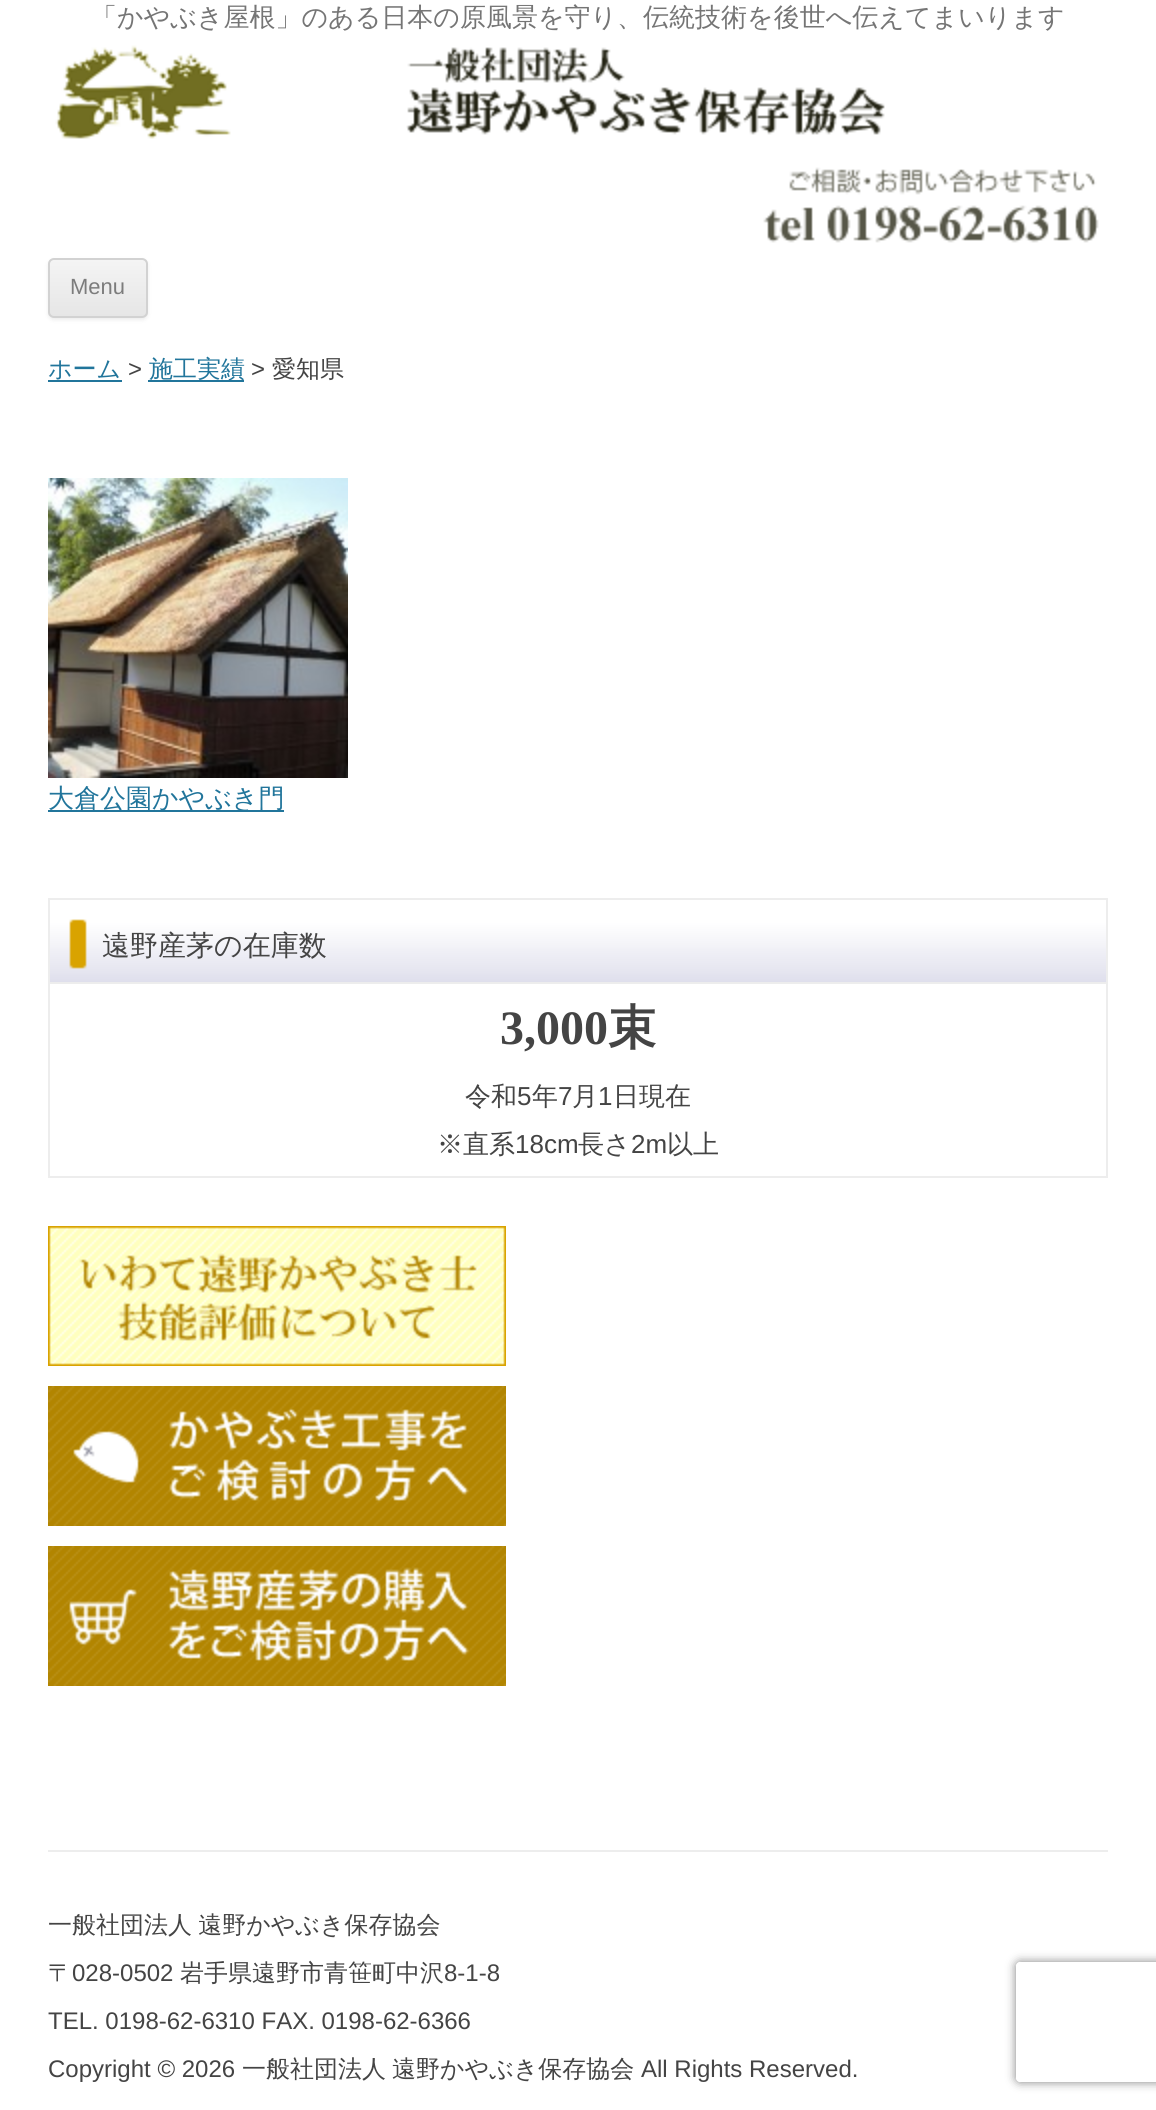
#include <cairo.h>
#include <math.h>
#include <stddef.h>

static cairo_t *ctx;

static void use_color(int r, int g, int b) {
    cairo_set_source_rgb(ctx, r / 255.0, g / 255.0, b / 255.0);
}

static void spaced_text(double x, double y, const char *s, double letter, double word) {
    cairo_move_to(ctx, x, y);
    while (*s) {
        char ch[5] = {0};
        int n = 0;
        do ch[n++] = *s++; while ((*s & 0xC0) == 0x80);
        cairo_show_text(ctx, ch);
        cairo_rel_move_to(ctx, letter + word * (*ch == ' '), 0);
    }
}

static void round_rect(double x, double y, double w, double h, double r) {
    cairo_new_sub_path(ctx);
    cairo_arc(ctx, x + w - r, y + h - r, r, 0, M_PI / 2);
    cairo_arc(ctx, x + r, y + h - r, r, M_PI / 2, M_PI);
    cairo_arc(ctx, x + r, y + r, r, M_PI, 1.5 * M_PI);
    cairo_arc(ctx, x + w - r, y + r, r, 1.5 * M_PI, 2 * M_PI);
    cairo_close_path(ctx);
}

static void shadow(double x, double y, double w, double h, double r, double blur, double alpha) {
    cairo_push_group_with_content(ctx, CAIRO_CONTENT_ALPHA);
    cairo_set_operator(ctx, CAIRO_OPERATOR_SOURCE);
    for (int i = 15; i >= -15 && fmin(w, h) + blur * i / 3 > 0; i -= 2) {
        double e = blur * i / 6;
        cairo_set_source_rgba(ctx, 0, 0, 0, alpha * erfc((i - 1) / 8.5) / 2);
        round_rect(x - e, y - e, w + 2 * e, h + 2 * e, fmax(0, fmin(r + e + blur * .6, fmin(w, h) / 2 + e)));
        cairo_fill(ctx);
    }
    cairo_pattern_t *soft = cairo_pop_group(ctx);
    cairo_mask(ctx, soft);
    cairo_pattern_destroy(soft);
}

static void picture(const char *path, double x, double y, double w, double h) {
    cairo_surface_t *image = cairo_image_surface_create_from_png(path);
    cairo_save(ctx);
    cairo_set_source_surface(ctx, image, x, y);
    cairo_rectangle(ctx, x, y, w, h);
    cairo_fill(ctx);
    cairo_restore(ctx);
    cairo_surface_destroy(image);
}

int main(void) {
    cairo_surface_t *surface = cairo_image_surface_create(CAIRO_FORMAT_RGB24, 1156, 2110);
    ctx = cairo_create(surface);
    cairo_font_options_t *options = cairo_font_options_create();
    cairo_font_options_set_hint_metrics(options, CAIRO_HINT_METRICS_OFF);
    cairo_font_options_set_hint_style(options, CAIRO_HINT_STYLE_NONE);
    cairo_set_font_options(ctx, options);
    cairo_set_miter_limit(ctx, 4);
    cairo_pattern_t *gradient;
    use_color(255, 255, 255);
    cairo_paint(ctx);
    cairo_select_font_face(ctx, "WenQuanYi Zen Hei Medium", CAIRO_FONT_SLANT_NORMAL, CAIRO_FONT_WEIGHT_NORMAL);
    cairo_set_font_size(ctx, 26);
    use_color(117, 117, 117);
    cairo_move_to(ctx, 91, 26);
    cairo_show_text(ctx, "「かやぶき屋根」のある日本の原風景を守り、伝統技術を後世へ伝えてまいります");
    picture("img1.png", 55, 45, 176, 94);
    picture("img2.png", 406, 47, 479, 88);
    picture("img3.png", 763, 167, 336, 76);
    use_color(64, 64, 64);
    shadow(48, 260, 100, 60, 6, 2, 0.1);
    cairo_save(ctx);
    round_rect(48, 258, 100, 60, 6);
    cairo_clip(ctx);
    gradient = cairo_pattern_create_linear(98, 260, 98, 316);
    cairo_pattern_add_color_stop_rgba(gradient, 0, 0.957, 0.957, 0.957, 1);
    cairo_pattern_add_color_stop_rgba(gradient, 1, 0.902, 0.902, 0.902, 1);
    cairo_set_source(ctx, gradient);
    cairo_pattern_destroy(gradient);
    cairo_rectangle(ctx, 48, 260, 100, 56);
    cairo_fill(ctx);
    cairo_restore(ctx);
    round_rect(49, 259, 98, 58, 5);
    use_color(210, 210, 210);
    cairo_stroke(ctx);
    cairo_select_font_face(ctx, "Liberation Sans", CAIRO_FONT_SLANT_NORMAL, CAIRO_FONT_WEIGHT_NORMAL);
    cairo_set_font_size(ctx, 22);
    use_color(124, 124, 124);
    cairo_move_to(ctx, 70, 294);
    cairo_show_text(ctx, "Menu");
    cairo_select_font_face(ctx, "WenQuanYi Zen Hei Medium", CAIRO_FONT_SLANT_NORMAL, CAIRO_FONT_WEIGHT_NORMAL);
    cairo_set_font_size(ctx, 24);
    use_color(33, 117, 155);
    cairo_move_to(ctx, 48, 377);
    cairo_show_text(ctx, "ホーム");
    cairo_rectangle(ctx, 48, 380, 74, 2);
    cairo_fill(ctx);
    cairo_select_font_face(ctx, "Liberation Sans", CAIRO_FONT_SLANT_NORMAL, CAIRO_FONT_WEIGHT_NORMAL);
    use_color(68, 68, 68);
    cairo_move_to(ctx, 128, 377);
    cairo_show_text(ctx, ">");
    use_color(33, 117, 155);
    cairo_rectangle(ctx, 148, 380, 96, 2);
    cairo_fill(ctx);
    cairo_select_font_face(ctx, "WenQuanYi Zen Hei Medium", CAIRO_FONT_SLANT_NORMAL, CAIRO_FONT_WEIGHT_NORMAL);
    cairo_move_to(ctx, 149, 377);
    cairo_show_text(ctx, "施工実績");
    cairo_select_font_face(ctx, "Liberation Sans", CAIRO_FONT_SLANT_NORMAL, CAIRO_FONT_WEIGHT_NORMAL);
    use_color(68, 68, 68);
    cairo_move_to(ctx, 251, 377);
    cairo_show_text(ctx, ">");
    cairo_select_font_face(ctx, "WenQuanYi Zen Hei Medium", CAIRO_FONT_SLANT_NORMAL, CAIRO_FONT_WEIGHT_NORMAL);
    cairo_move_to(ctx, 272, 377);
    cairo_show_text(ctx, "愛知県");
    picture("img4.png", 48, 478, 300, 300);
    use_color(33, 117, 155);
    cairo_rectangle(ctx, 48, 810, 236, 2);
    cairo_fill(ctx);
    cairo_set_font_size(ctx, 26);
    cairo_move_to(ctx, 48, 807);
    cairo_show_text(ctx, "大倉公園かやぶき門");
    picture("img5.png", 50, 919, 1056, 63);
    cairo_rectangle(ctx, 49, 899, 1058, 84);
    use_color(237, 237, 237);
    cairo_stroke(ctx);
    cairo_set_font_size(ctx, 28);
    use_color(68, 68, 68);
    cairo_move_to(ctx, 102, 955);
    cairo_show_text(ctx, "遠野産茅の在庫数");
    use_color(237, 237, 237);
    cairo_rectangle(ctx, 1106, 984, 2, 194);
    cairo_fill(ctx);
    cairo_rectangle(ctx, 48, 984, 2, 88);
    cairo_fill(ctx);
    cairo_select_font_face(ctx, "Liberation Serif", CAIRO_FONT_SLANT_NORMAL, CAIRO_FONT_WEIGHT_BOLD);
    cairo_set_font_size(ctx, 48);
    use_color(68, 68, 68);
    cairo_move_to(ctx, 500, 1044);
    cairo_show_text(ctx, "3,000");
    cairo_select_font_face(ctx, "WenQuanYi Zen Hei", CAIRO_FONT_SLANT_NORMAL, CAIRO_FONT_WEIGHT_BOLD);
    cairo_move_to(ctx, 608, 1044);
    cairo_show_text(ctx, "束");
    use_color(237, 237, 237);
    cairo_rectangle(ctx, 48, 1176, 1060, 2);
    cairo_fill(ctx);
    cairo_rectangle(ctx, 48, 1072, 2, 106);
    cairo_fill(ctx);
    cairo_select_font_face(ctx, "WenQuanYi Zen Hei Medium", CAIRO_FONT_SLANT_NORMAL, CAIRO_FONT_WEIGHT_NORMAL);
    cairo_set_font_size(ctx, 26);
    use_color(68, 68, 68);
    cairo_move_to(ctx, 465, 1105);
    cairo_show_text(ctx, "令和");
    cairo_select_font_face(ctx, "Liberation Sans", CAIRO_FONT_SLANT_NORMAL, CAIRO_FONT_WEIGHT_NORMAL);
    cairo_move_to(ctx, 517, 1105);
    cairo_show_text(ctx, "5");
    cairo_select_font_face(ctx, "WenQuanYi Zen Hei Medium", CAIRO_FONT_SLANT_NORMAL, CAIRO_FONT_WEIGHT_NORMAL);
    cairo_move_to(ctx, 532, 1105);
    cairo_show_text(ctx, "年");
    cairo_select_font_face(ctx, "Liberation Sans", CAIRO_FONT_SLANT_NORMAL, CAIRO_FONT_WEIGHT_NORMAL);
    cairo_move_to(ctx, 558, 1105);
    cairo_show_text(ctx, "7");
    cairo_select_font_face(ctx, "WenQuanYi Zen Hei Medium", CAIRO_FONT_SLANT_NORMAL, CAIRO_FONT_WEIGHT_NORMAL);
    cairo_move_to(ctx, 572, 1105);
    cairo_show_text(ctx, "月");
    cairo_select_font_face(ctx, "Liberation Sans", CAIRO_FONT_SLANT_NORMAL, CAIRO_FONT_WEIGHT_NORMAL);
    cairo_move_to(ctx, 598, 1105);
    cairo_show_text(ctx, "1");
    cairo_select_font_face(ctx, "WenQuanYi Zen Hei Medium", CAIRO_FONT_SLANT_NORMAL, CAIRO_FONT_WEIGHT_NORMAL);
    cairo_move_to(ctx, 613, 1105);
    cairo_show_text(ctx, "日現在");
    cairo_move_to(ctx, 437, 1153);
    cairo_show_text(ctx, "※直系");
    cairo_select_font_face(ctx, "Liberation Sans", CAIRO_FONT_SLANT_NORMAL, CAIRO_FONT_WEIGHT_NORMAL);
    cairo_move_to(ctx, 515, 1153);
    cairo_show_text(ctx, "18cm");
    cairo_select_font_face(ctx, "WenQuanYi Zen Hei Medium", CAIRO_FONT_SLANT_NORMAL, CAIRO_FONT_WEIGHT_NORMAL);
    cairo_move_to(ctx, 578, 1153);
    cairo_show_text(ctx, "長さ");
    cairo_select_font_face(ctx, "Liberation Sans", CAIRO_FONT_SLANT_NORMAL, CAIRO_FONT_WEIGHT_NORMAL);
    cairo_move_to(ctx, 631, 1153);
    cairo_show_text(ctx, "2m");
    cairo_select_font_face(ctx, "WenQuanYi Zen Hei Medium", CAIRO_FONT_SLANT_NORMAL, CAIRO_FONT_WEIGHT_NORMAL);
    cairo_move_to(ctx, 667, 1153);
    cairo_show_text(ctx, "以上");
    picture("img6.png", 48, 1226, 458, 140);
    picture("img7.png", 48, 1386, 458, 140);
    picture("img8.png", 48, 1546, 458, 140);
    use_color(237, 237, 237);
    cairo_rectangle(ctx, 48, 1850, 1060, 2);
    cairo_fill(ctx);
    cairo_set_font_size(ctx, 24);
    use_color(68, 68, 68);
    spaced_text(48, 1933, "一般社団法人 遠野かやぶき保存協会", 0, -1);
    cairo_move_to(ctx, 48, 1981);
    cairo_show_text(ctx, "〒");
    cairo_select_font_face(ctx, "Liberation Sans", CAIRO_FONT_SLANT_NORMAL, CAIRO_FONT_WEIGHT_NORMAL);
    cairo_move_to(ctx, 72, 1981);
    cairo_show_text(ctx, "028-0502");
    cairo_select_font_face(ctx, "WenQuanYi Zen Hei Medium", CAIRO_FONT_SLANT_NORMAL, CAIRO_FONT_WEIGHT_NORMAL);
    cairo_move_to(ctx, 180, 1981);
    cairo_show_text(ctx, "岩手県遠野市青笹町中沢");
    cairo_select_font_face(ctx, "Liberation Sans", CAIRO_FONT_SLANT_NORMAL, CAIRO_FONT_WEIGHT_NORMAL);
    cairo_move_to(ctx, 444, 1981);
    cairo_show_text(ctx, "8-1-8");
    cairo_move_to(ctx, 48, 2029);
    cairo_show_text(ctx, "TEL. 0198-62-6310 FAX. 0198-62-6366");
    cairo_move_to(ctx, 48, 2077);
    cairo_show_text(ctx, "Copyright © 2026");
    cairo_select_font_face(ctx, "WenQuanYi Zen Hei Medium", CAIRO_FONT_SLANT_NORMAL, CAIRO_FONT_WEIGHT_NORMAL);
    cairo_move_to(ctx, 242, 2077);
    cairo_show_text(ctx, "一般社団法人");
    cairo_move_to(ctx, 392, 2077);
    cairo_show_text(ctx, "遠野かやぶき保存協会");
    cairo_select_font_face(ctx, "Liberation Sans", CAIRO_FONT_SLANT_NORMAL, CAIRO_FONT_WEIGHT_NORMAL);
    cairo_move_to(ctx, 641, 2077);
    cairo_show_text(ctx, "All Rights Reserved.");
    cairo_save(ctx);
    cairo_set_fill_rule(ctx, CAIRO_FILL_RULE_EVEN_ODD);
    cairo_new_path(ctx);
    cairo_move_to(ctx, 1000, 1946);
    cairo_line_to(ctx, 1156, 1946);
    cairo_line_to(ctx, 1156, 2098);
    cairo_line_to(ctx, 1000, 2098);
    cairo_close_path(ctx);
    cairo_move_to(ctx, 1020, 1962);
    cairo_line_to(ctx, 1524, 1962);
    cairo_curve_to(ctx, 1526, 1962, 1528, 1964, 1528, 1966);
    cairo_line_to(ctx, 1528, 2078);
    cairo_curve_to(ctx, 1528, 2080, 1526, 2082, 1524, 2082);
    cairo_line_to(ctx, 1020, 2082);
    cairo_curve_to(ctx, 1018, 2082, 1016, 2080, 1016, 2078);
    cairo_line_to(ctx, 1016, 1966);
    cairo_curve_to(ctx, 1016, 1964, 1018, 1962, 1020, 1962);
    cairo_close_path(ctx);
    cairo_clip(ctx);
    use_color(128, 128, 128);
    shadow(1016, 1962, 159, 120, 4, 5, 1);
    cairo_restore(ctx);
    cairo_surface_write_to_png(surface, "result.png");
    cairo_font_options_destroy(options);
    cairo_destroy(ctx);
    cairo_surface_destroy(surface);
    return 0;
}
